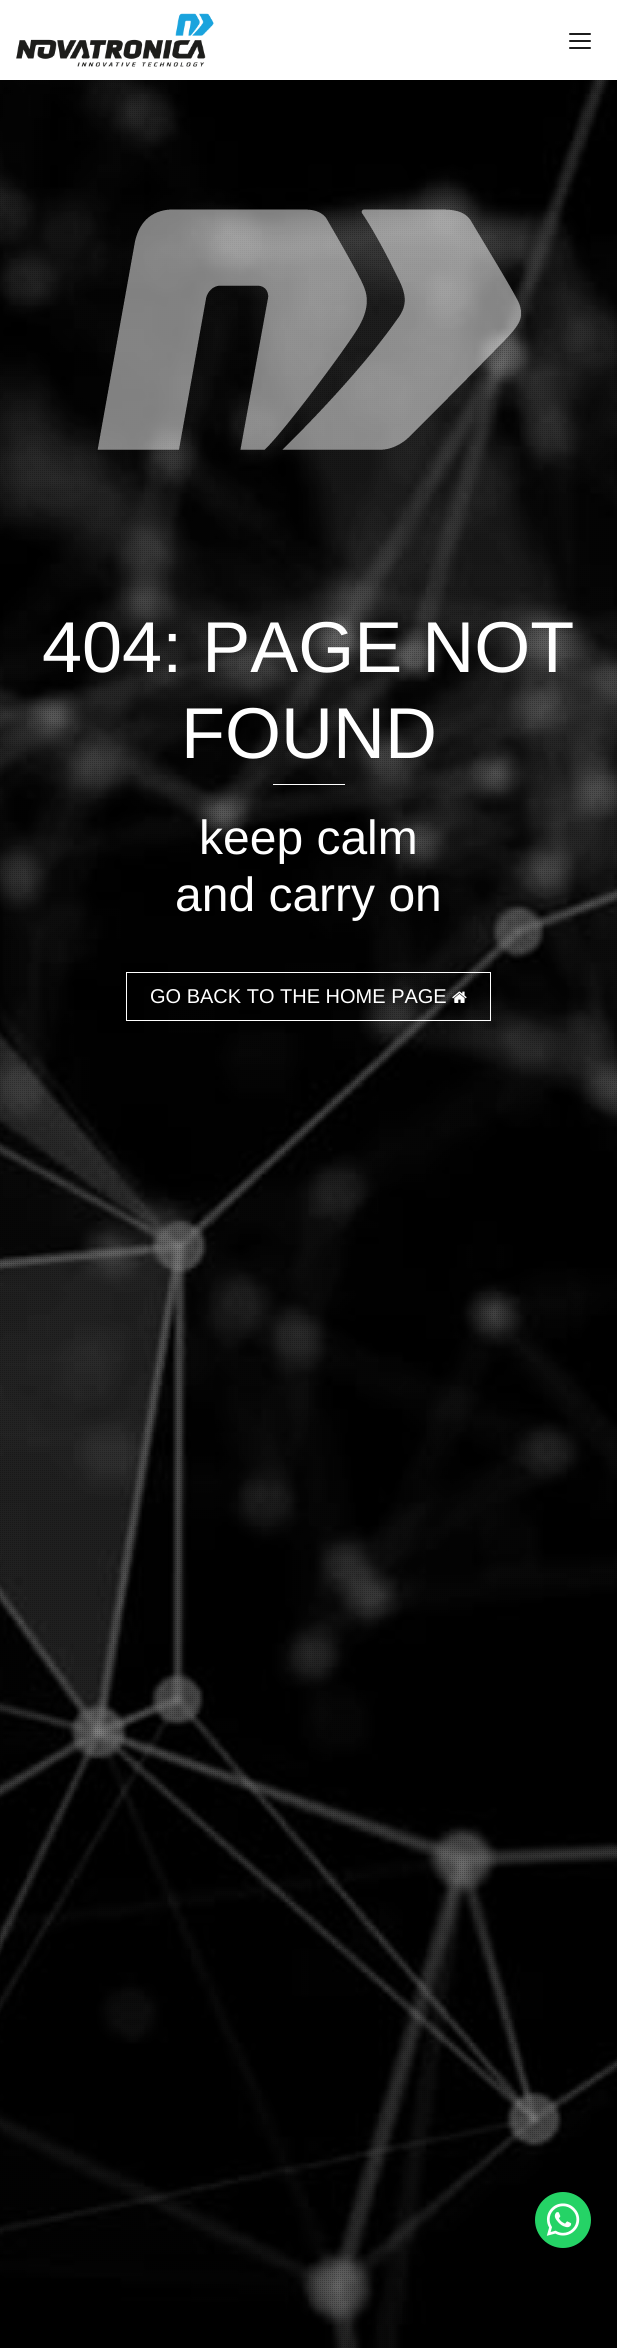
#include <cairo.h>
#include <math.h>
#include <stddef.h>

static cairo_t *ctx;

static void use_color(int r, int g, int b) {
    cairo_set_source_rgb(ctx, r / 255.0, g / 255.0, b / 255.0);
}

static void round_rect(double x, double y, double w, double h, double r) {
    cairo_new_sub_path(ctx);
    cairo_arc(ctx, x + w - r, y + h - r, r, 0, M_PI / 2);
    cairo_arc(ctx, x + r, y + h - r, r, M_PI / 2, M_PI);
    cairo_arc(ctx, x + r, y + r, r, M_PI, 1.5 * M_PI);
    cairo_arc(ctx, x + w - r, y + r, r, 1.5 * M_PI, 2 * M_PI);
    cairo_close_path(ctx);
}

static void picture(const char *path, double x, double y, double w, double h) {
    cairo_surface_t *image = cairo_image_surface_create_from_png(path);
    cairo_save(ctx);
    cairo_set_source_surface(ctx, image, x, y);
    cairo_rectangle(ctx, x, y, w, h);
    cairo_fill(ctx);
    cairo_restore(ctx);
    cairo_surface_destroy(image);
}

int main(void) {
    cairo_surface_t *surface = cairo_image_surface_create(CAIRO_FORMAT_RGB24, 617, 2348);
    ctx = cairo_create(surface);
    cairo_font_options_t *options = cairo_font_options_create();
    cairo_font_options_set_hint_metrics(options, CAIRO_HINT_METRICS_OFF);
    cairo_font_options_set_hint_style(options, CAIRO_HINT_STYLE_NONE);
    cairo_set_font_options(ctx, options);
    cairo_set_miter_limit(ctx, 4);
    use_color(255, 255, 255);
    cairo_paint(ctx);
    picture("img1.png", 16, 13, 198, 54);
    use_color(28, 28, 28);
    round_rect(569, 33, 22, 2, 1);
    cairo_fill(ctx);
    round_rect(569, 40, 22, 2, 1);
    cairo_fill(ctx);
    round_rect(569, 47, 22, 2, 1);
    cairo_fill(ctx);
    picture("img2.png", 0, 80, 617, 2268);
    picture("img3.png", 0, 80, 617, 2268);
    picture("img4.png", 97, 209, 424, 241);
    cairo_select_font_face(ctx, "Liberation Sans", CAIRO_FONT_SLANT_NORMAL, CAIRO_FONT_WEIGHT_NORMAL);
    cairo_set_font_size(ctx, 72);
    use_color(255, 255, 255);
    cairo_move_to(ctx, 42, 672);
    cairo_show_text(ctx, "404: PAGE NOT");
    cairo_move_to(ctx, 181, 758);
    cairo_show_text(ctx, "FOUND");
    cairo_set_source_rgba(ctx, 0, 0, 0, 0.2);
    cairo_rectangle(ctx, 273, 785, 72, 1);
    cairo_fill(ctx);
    use_color(255, 255, 255);
    cairo_rectangle(ctx, 273, 784, 72, 1);
    cairo_fill(ctx);
    cairo_set_font_size(ctx, 48);
    cairo_move_to(ctx, 199, 854);
    cairo_show_text(ctx, "keep calm");
    cairo_move_to(ctx, 175, 911);
    cairo_show_text(ctx, "and carry on");
    cairo_rectangle(ctx, 126.5, 972.5, 364, 48);
    cairo_set_line_width(ctx, 1);
    cairo_stroke(ctx);
    cairo_set_font_size(ctx, 20);
    cairo_move_to(ctx, 150, 1003);
    cairo_show_text(ctx, "GO BACK TO THE HOME PAGE");
    picture("img5.png", 452, 991, 15, 12);
    use_color(37, 211, 102);
    cairo_arc(ctx, 563, 2220, 28, 0, 2 * M_PI);
    cairo_fill(ctx);
    picture("img6.png", 546, 2203, 34, 33);
    cairo_surface_write_to_png(surface, "result.png");
    cairo_font_options_destroy(options);
    cairo_destroy(ctx);
    cairo_surface_destroy(surface);
    return 0;
}
